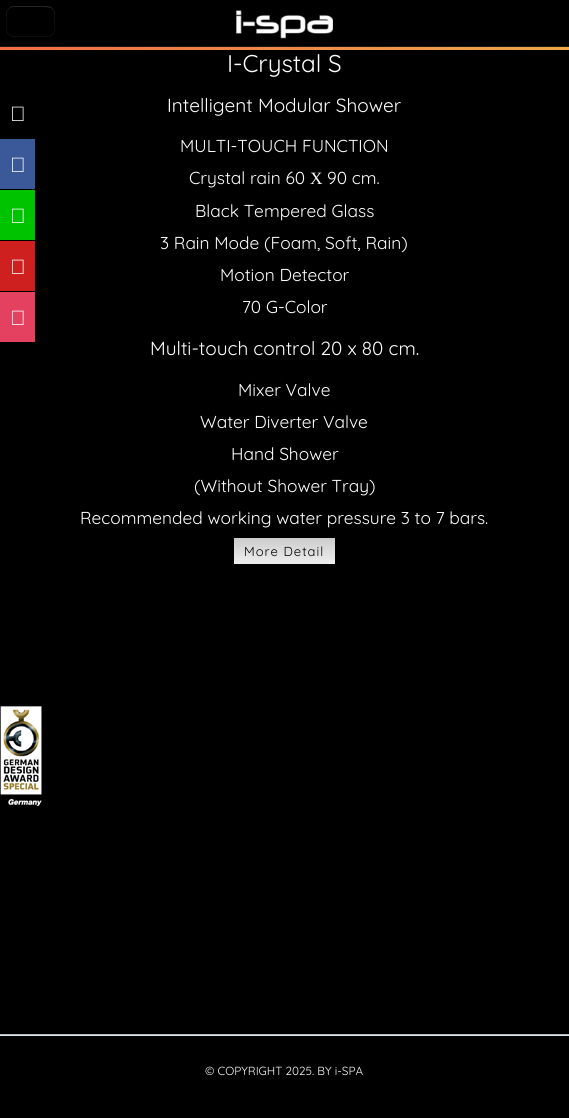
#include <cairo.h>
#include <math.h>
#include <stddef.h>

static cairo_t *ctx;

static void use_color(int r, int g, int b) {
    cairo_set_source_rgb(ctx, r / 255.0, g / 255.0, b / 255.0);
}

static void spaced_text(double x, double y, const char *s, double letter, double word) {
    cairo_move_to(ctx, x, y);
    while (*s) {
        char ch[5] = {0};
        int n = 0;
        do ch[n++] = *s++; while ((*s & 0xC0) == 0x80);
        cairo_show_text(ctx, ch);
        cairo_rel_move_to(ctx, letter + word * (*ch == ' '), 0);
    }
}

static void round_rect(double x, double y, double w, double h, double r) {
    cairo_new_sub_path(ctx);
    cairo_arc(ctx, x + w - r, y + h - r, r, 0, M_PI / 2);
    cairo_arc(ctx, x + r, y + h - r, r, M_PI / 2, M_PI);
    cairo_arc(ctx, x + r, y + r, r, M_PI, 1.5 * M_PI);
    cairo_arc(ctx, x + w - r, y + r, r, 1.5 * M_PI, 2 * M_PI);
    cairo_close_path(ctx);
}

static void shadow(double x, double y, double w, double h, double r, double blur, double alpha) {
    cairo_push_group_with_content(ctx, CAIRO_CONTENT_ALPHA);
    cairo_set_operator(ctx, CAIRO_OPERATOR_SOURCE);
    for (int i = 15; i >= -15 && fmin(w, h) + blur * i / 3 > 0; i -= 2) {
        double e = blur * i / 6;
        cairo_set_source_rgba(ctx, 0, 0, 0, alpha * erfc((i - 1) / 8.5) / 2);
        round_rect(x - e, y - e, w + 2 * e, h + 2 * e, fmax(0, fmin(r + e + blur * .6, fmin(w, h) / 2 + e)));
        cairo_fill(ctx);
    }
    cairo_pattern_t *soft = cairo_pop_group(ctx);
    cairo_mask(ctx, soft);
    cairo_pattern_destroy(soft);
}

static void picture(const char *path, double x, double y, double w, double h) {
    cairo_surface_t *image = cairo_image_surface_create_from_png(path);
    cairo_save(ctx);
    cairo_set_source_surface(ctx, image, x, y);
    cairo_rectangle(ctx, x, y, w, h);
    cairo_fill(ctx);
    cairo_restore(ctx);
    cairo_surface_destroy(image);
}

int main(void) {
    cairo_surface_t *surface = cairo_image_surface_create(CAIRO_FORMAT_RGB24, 569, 1118);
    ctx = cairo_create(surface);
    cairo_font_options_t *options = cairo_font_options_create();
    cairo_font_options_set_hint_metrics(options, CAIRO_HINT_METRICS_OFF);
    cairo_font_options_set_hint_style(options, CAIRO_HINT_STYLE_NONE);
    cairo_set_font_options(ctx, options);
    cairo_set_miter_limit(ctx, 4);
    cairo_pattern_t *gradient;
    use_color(0, 0, 0);
    cairo_paint(ctx);
    cairo_save(ctx);
    cairo_rectangle(ctx, 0, 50, 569, 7);
    cairo_clip(ctx);
    shadow(0, 1, 569, 50, 0, 3.5, 0.6);
    cairo_restore(ctx);
    use_color(26, 26, 26);
    cairo_rectangle(ctx, 0, 46, 569, 1);
    cairo_fill(ctx);
    picture("img1.png", 0, 47, 569, 3);
    round_rect(6.5, 6.5, 48, 30, 7.5);
    use_color(13, 13, 13);
    cairo_set_line_width(ctx, 1);
    cairo_stroke(ctx);
    cairo_set_source_rgba(ctx, 1, 1, 1, 0.1);
    cairo_set_fill_rule(ctx, CAIRO_FILL_RULE_EVEN_ODD);
    cairo_new_path(ctx);
    cairo_move_to(ctx, 14, 7);
    cairo_line_to(ctx, 42, 7);
    cairo_curve_to(ctx, 55, 7, 55, 10, 55, 22);
    cairo_line_to(ctx, 55, 14);
    cairo_curve_to(ctx, 55, 10, 51, 6, 47, 6);
    cairo_line_to(ctx, 14, 6);
    cairo_curve_to(ctx, 10, 6, 6, 10, 6, 14);
    cairo_line_to(ctx, 6, 17);
    cairo_curve_to(ctx, 6, 12, 7, 7, 14, 7);
    cairo_close_path(ctx);
    cairo_move_to(ctx, 55, 28);
    cairo_line_to(ctx, 55, 31);
    cairo_close_path(ctx);
    cairo_move_to(ctx, 7, 32);
    cairo_line_to(ctx, 6, 29);
    cairo_close_path(ctx);
    cairo_fill(ctx);
    picture("img2.png", 236, 10, 97, 29);
    picture("img3.png", 12, 106, 12, 15);
    use_color(59, 89, 152);
    cairo_rectangle(ctx, 0, 139, 35, 50);
    cairo_fill(ctx);
    picture("img4.png", 12, 157, 12, 15);
    use_color(0, 195, 0);
    cairo_rectangle(ctx, 0, 190, 35, 50);
    cairo_fill(ctx);
    picture("img5.png", 12, 208, 12, 15);
    use_color(205, 32, 31);
    cairo_rectangle(ctx, 0, 241, 35, 50);
    cairo_fill(ctx);
    picture("img6.png", 12, 259, 12, 15);
    use_color(228, 64, 95);
    cairo_rectangle(ctx, 0, 292, 35, 50);
    cairo_fill(ctx);
    picture("img7.png", 12, 310, 12, 15);
    cairo_select_font_face(ctx, "Quicksand Light", CAIRO_FONT_SLANT_NORMAL, CAIRO_FONT_WEIGHT_NORMAL);
    cairo_set_font_size(ctx, 24.25);
    use_color(255, 255, 255);
    cairo_move_to(ctx, 227, 72);
    cairo_show_text(ctx, "I-Crystal S");
    cairo_set_font_size(ctx, 19);
    cairo_move_to(ctx, 167, 112);
    cairo_show_text(ctx, "Intelligent Modular Shower");
    cairo_set_font_size(ctx, 17.3);
    cairo_move_to(ctx, 180, 152);
    cairo_show_text(ctx, "MULTI-TOUCH FUNCTION");
    cairo_move_to(ctx, 189, 184);
    cairo_show_text(ctx, "Crystal rain 60");
    cairo_select_font_face(ctx, "Liberation Serif", CAIRO_FONT_SLANT_NORMAL, CAIRO_FONT_WEIGHT_NORMAL);
    cairo_move_to(ctx, 310, 184);
    cairo_show_text(ctx, "Χ");
    cairo_select_font_face(ctx, "Quicksand Light", CAIRO_FONT_SLANT_NORMAL, CAIRO_FONT_WEIGHT_NORMAL);
    cairo_move_to(ctx, 327, 184);
    cairo_show_text(ctx, "90 cm.");
    cairo_move_to(ctx, 195, 217);
    cairo_show_text(ctx, "Black Tempered Glass");
    cairo_move_to(ctx, 160, 249);
    cairo_show_text(ctx, "3 Rain Mode (Foam, Soft, Rain)");
    cairo_move_to(ctx, 220, 281);
    cairo_show_text(ctx, "Motion Detector");
    cairo_move_to(ctx, 242, 313);
    cairo_show_text(ctx, "70 G-Color");
    cairo_set_font_size(ctx, 19);
    cairo_move_to(ctx, 150, 355);
    cairo_show_text(ctx, "Multi-touch control 20 x 80 cm.");
    cairo_set_font_size(ctx, 17.3);
    cairo_move_to(ctx, 238, 396);
    cairo_show_text(ctx, "Mixer Valve");
    cairo_move_to(ctx, 200, 428);
    cairo_show_text(ctx, "Water Diverter Valve");
    cairo_move_to(ctx, 231, 460);
    cairo_show_text(ctx, "Hand Shower");
    cairo_move_to(ctx, 194, 492);
    cairo_show_text(ctx, "(Without Shower Tray)");
    cairo_move_to(ctx, 80, 524);
    cairo_show_text(ctx, "Recommended working water pressure 3 to 7 bars.");
    gradient = cairo_pattern_create_linear(285, 538, 285, 564);
    cairo_pattern_add_color_stop_rgba(gradient, 0, 0.8, 0.8, 0.8, 1);
    cairo_pattern_add_color_stop_rgba(gradient, 1, 0.933, 0.933, 0.933, 1);
    cairo_set_source(ctx, gradient);
    cairo_pattern_destroy(gradient);
    cairo_rectangle(ctx, 234, 538, 101, 26);
    cairo_fill(ctx);
    cairo_set_font_size(ctx, 13);
    use_color(0, 0, 0);
    spaced_text(244, 556, "More Detail", 1, 0);
    picture("img8.png", 0, 706, 42, 100);
    use_color(224, 228, 231);
    cairo_rectangle(ctx, 0, 1035, 569, 1);
    cairo_fill(ctx);
    use_color(181, 190, 195);
    cairo_rectangle(ctx, 0, 1034, 569, 1);
    cairo_fill(ctx);
    cairo_set_font_size(ctx, 11.75);
    use_color(255, 255, 255);
    cairo_move_to(ctx, 205, 1075);
    cairo_show_text(ctx, "© COPYRIGHT 2025. BY i-SPA");
    cairo_surface_write_to_png(surface, "result.png");
    cairo_font_options_destroy(options);
    cairo_destroy(ctx);
    cairo_surface_destroy(surface);
    return 0;
}
